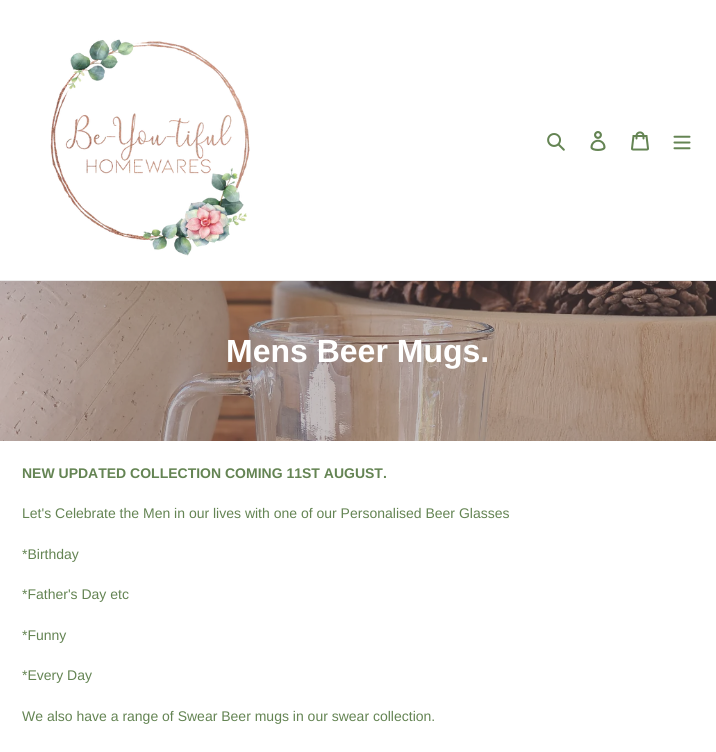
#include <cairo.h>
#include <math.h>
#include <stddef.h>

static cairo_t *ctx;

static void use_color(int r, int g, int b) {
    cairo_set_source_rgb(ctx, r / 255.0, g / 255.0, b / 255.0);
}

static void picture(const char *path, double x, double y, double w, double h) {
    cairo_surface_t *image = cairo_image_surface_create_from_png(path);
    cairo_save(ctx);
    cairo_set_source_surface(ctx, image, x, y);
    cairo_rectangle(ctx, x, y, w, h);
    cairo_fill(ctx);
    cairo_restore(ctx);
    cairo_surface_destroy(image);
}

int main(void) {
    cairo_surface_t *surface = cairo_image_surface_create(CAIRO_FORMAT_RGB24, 716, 752);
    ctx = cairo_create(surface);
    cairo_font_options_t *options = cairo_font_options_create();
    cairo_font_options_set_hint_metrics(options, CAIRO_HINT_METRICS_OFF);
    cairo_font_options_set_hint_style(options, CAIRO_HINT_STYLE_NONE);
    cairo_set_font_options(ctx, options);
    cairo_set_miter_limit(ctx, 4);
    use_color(255, 255, 255);
    cairo_paint(ctx);
    use_color(235, 235, 235);
    cairo_rectangle(ctx, 0, 280, 716, 1);
    cairo_fill(ctx);
    picture("img1.png", 50, 39, 200, 217);
    picture("img2.png", 547, 133, 18, 18);
    picture("img3.png", 590, 131, 16, 20);
    picture("img4.png", 631, 131, 18, 20);
    picture("img5.png", 673, 135, 18, 15);
    picture("img6.png", 0, 281, 716, 160);
    cairo_select_font_face(ctx, "Liberation Sans", CAIRO_FONT_SLANT_NORMAL, CAIRO_FONT_WEIGHT_BOLD);
    cairo_set_font_size(ctx, 32);
    use_color(255, 255, 255);
    cairo_move_to(ctx, 226, 362);
    cairo_show_text(ctx, "Mens Beer Mugs.");
    cairo_set_font_size(ctx, 14);
    use_color(100, 132, 83);
    cairo_move_to(ctx, 22, 478);
    cairo_show_text(ctx, "NEW UPDATED COLLECTION COMING 11ST AUGUST.");
    cairo_select_font_face(ctx, "Liberation Sans", CAIRO_FONT_SLANT_NORMAL, CAIRO_FONT_WEIGHT_NORMAL);
    cairo_move_to(ctx, 22, 518);
    cairo_show_text(ctx, "Let's Celebrate the Men in our lives with one of our Personalised Beer Glasses");
    cairo_move_to(ctx, 22, 559);
    cairo_show_text(ctx, "*Birthday");
    cairo_move_to(ctx, 22, 599);
    cairo_show_text(ctx, "*Father's Day etc");
    cairo_move_to(ctx, 22, 640);
    cairo_show_text(ctx, "*Funny");
    cairo_move_to(ctx, 22, 680);
    cairo_show_text(ctx, "*Every Day");
    cairo_move_to(ctx, 22, 721);
    cairo_show_text(ctx, "We also have a range of Swear Beer mugs in our swear collection.");
    cairo_surface_write_to_png(surface, "result.png");
    cairo_font_options_destroy(options);
    cairo_destroy(ctx);
    cairo_surface_destroy(surface);
    return 0;
}
